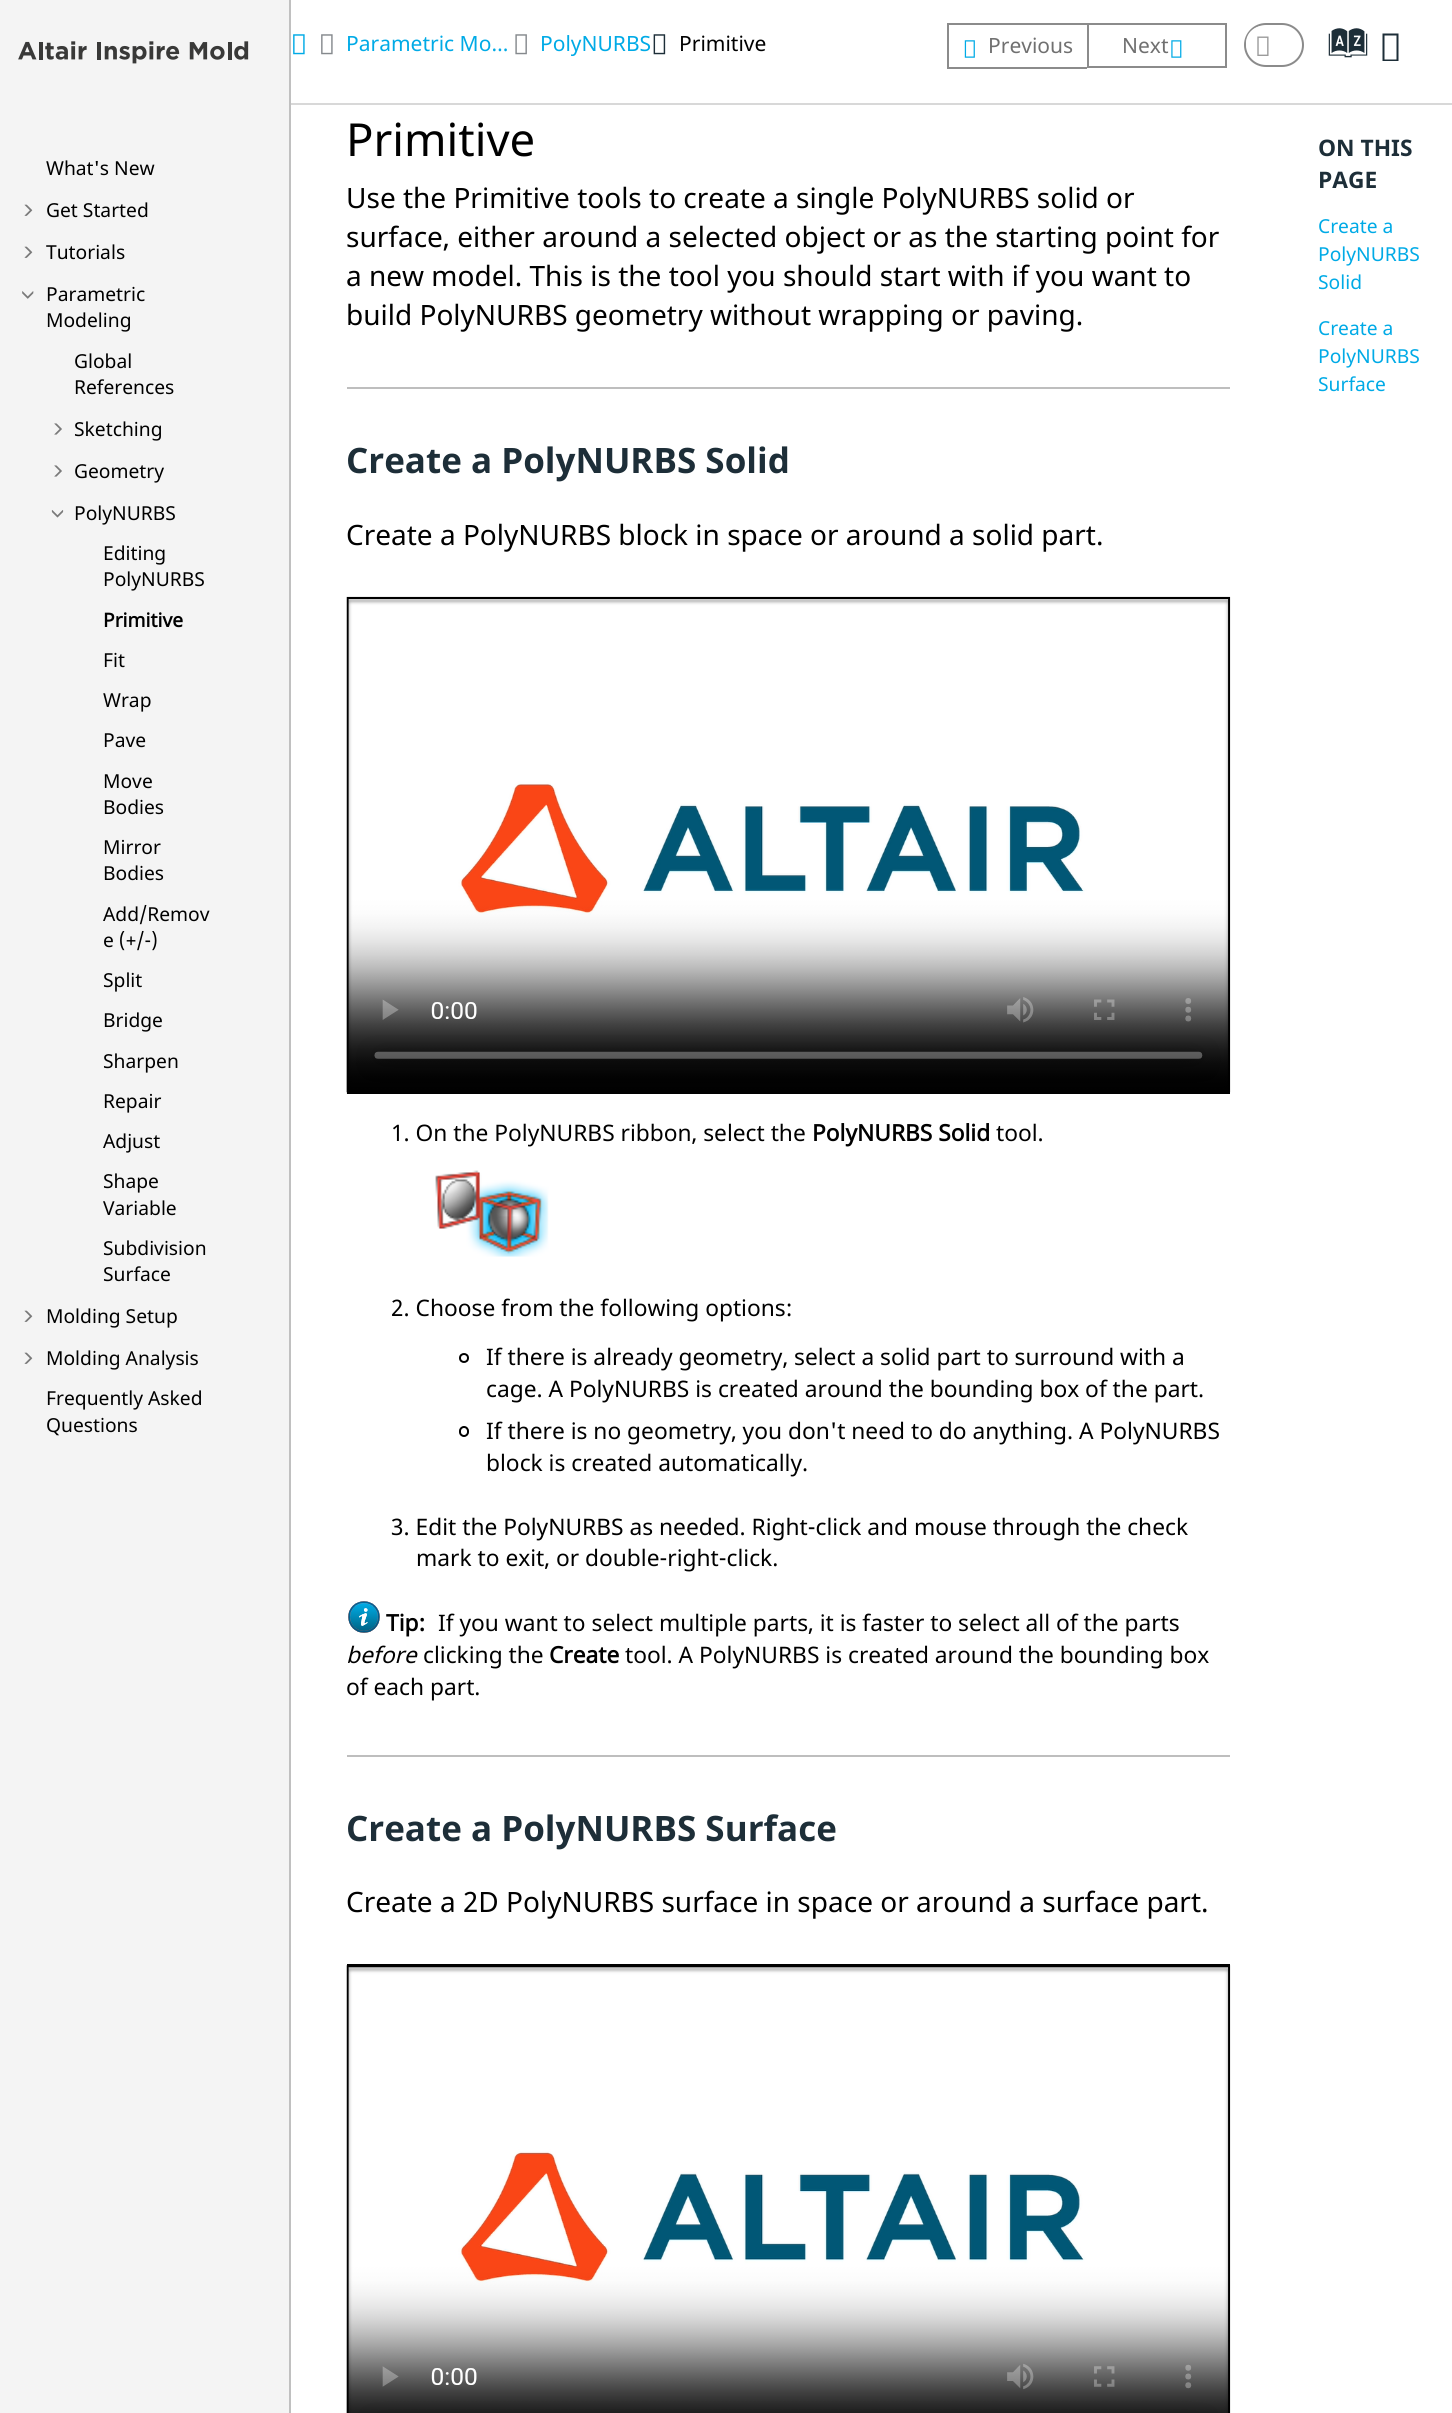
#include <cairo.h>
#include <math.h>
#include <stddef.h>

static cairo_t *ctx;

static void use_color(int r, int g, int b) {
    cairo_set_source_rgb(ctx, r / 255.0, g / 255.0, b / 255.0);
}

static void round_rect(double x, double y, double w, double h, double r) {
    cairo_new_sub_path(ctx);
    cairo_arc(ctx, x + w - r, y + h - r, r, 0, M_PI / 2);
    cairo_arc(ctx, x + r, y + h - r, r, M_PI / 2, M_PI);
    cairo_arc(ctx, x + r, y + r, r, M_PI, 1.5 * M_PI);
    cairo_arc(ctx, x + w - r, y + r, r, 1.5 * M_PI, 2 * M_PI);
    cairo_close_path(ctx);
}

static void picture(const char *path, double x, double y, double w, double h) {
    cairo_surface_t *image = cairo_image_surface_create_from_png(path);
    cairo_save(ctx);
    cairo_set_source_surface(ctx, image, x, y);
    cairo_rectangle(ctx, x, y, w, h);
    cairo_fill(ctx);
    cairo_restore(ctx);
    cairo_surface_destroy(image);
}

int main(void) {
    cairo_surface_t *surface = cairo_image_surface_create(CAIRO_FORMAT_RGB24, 1452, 2413);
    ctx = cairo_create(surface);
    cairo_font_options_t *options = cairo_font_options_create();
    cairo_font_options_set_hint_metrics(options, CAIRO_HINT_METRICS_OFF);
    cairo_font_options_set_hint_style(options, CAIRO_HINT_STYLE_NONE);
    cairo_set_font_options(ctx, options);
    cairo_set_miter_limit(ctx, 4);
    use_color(255, 255, 255);
    cairo_paint(ctx);
    use_color(244, 244, 244);
    cairo_rectangle(ctx, 0, 0, 289, 2413);
    cairo_fill(ctx);
    use_color(192, 192, 192);
    cairo_rectangle(ctx, 289, 0, 2, 2413);
    cairo_fill(ctx);
    picture("img1.png", 18, 41, 231, 23);
    cairo_select_font_face(ctx, "Noto Sans", CAIRO_FONT_SLANT_NORMAL, CAIRO_FONT_WEIGHT_NORMAL);
    cairo_set_font_size(ctx, 19.25);
    use_color(0, 0, 0);
    cairo_move_to(ctx, 46, 175);
    cairo_show_text(ctx, "What's New");
    picture("img2.png", 24, 204, 9, 12);
    cairo_move_to(ctx, 46, 217);
    cairo_show_text(ctx, "Get Started");
    picture("img2.png", 24, 246, 9, 12);
    cairo_move_to(ctx, 46, 259);
    cairo_show_text(ctx, "Tutorials");
    picture("img3.png", 22, 291, 12, 8);
    cairo_move_to(ctx, 46, 301);
    cairo_show_text(ctx, "Parametric");
    cairo_move_to(ctx, 46, 327);
    cairo_show_text(ctx, "Modeling");
    cairo_move_to(ctx, 74, 368);
    cairo_show_text(ctx, "Global");
    cairo_move_to(ctx, 74, 394);
    cairo_show_text(ctx, "References");
    picture("img4.png", 54, 423, 8, 12);
    cairo_move_to(ctx, 74, 436);
    cairo_show_text(ctx, "Sketching");
    picture("img4.png", 54, 465, 8, 12);
    cairo_move_to(ctx, 74, 478);
    cairo_show_text(ctx, "Geometry");
    picture("img5.png", 51, 510, 13, 8);
    cairo_move_to(ctx, 74, 520);
    cairo_show_text(ctx, "PolyNURBS");
    cairo_move_to(ctx, 103, 560);
    cairo_show_text(ctx, "Editing");
    cairo_move_to(ctx, 103, 586);
    cairo_show_text(ctx, "PolyNURBS");
    cairo_select_font_face(ctx, "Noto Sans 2", CAIRO_FONT_SLANT_NORMAL, CAIRO_FONT_WEIGHT_BOLD);
    cairo_move_to(ctx, 103, 627);
    cairo_show_text(ctx, "Primitive");
    cairo_select_font_face(ctx, "Noto Sans", CAIRO_FONT_SLANT_NORMAL, CAIRO_FONT_WEIGHT_NORMAL);
    cairo_move_to(ctx, 103, 667);
    cairo_show_text(ctx, "Fit");
    cairo_move_to(ctx, 103, 707);
    cairo_show_text(ctx, "Wrap");
    cairo_move_to(ctx, 103, 747);
    cairo_show_text(ctx, "Pave");
    cairo_move_to(ctx, 103, 788);
    cairo_show_text(ctx, "Move");
    cairo_move_to(ctx, 103, 814);
    cairo_show_text(ctx, "Bodies");
    cairo_move_to(ctx, 103, 854);
    cairo_show_text(ctx, "Mirror");
    cairo_move_to(ctx, 103, 880);
    cairo_show_text(ctx, "Bodies");
    cairo_move_to(ctx, 103, 921);
    cairo_show_text(ctx, "Add/Remov");
    cairo_move_to(ctx, 103, 947);
    cairo_show_text(ctx, "e (+/-)");
    cairo_move_to(ctx, 103, 987);
    cairo_show_text(ctx, "Split");
    cairo_move_to(ctx, 103, 1027);
    cairo_show_text(ctx, "Bridge");
    cairo_move_to(ctx, 103, 1068);
    cairo_show_text(ctx, "Sharpen");
    cairo_move_to(ctx, 103, 1108);
    cairo_show_text(ctx, "Repair");
    cairo_move_to(ctx, 103, 1148);
    cairo_show_text(ctx, "Adjust");
    cairo_move_to(ctx, 103, 1188);
    cairo_show_text(ctx, "Shape");
    cairo_move_to(ctx, 103, 1215);
    cairo_show_text(ctx, "Variable");
    cairo_move_to(ctx, 103, 1255);
    cairo_show_text(ctx, "Subdivision");
    cairo_move_to(ctx, 103, 1281);
    cairo_show_text(ctx, "Surface");
    picture("img2.png", 24, 1310, 9, 12);
    cairo_move_to(ctx, 46, 1323);
    cairo_show_text(ctx, "Molding Setup");
    picture("img2.png", 24, 1352, 9, 12);
    cairo_move_to(ctx, 46, 1365);
    cairo_show_text(ctx, "Molding Analysis");
    cairo_move_to(ctx, 46, 1405);
    cairo_show_text(ctx, "Frequently Asked");
    cairo_move_to(ctx, 46, 1432);
    cairo_show_text(ctx, "Questions");
    use_color(216, 216, 216);
    cairo_rectangle(ctx, 291, 103, 1161, 2);
    cairo_fill(ctx);
    picture("img6.png", 293, 34, 12, 21);
    picture("img7.png", 321, 34, 12, 21);
    cairo_set_font_size(ctx, 21);
    use_color(0, 170, 230);
    cairo_move_to(ctx, 346, 51);
    cairo_show_text(ctx, "Parametric Mo…");
    picture("img8.png", 515, 34, 12, 21);
    cairo_move_to(ctx, 540, 51);
    cairo_show_text(ctx, "PolyNURBS");
    picture("img9.png", 653, 34, 13, 21);
    use_color(0, 0, 0);
    cairo_move_to(ctx, 679, 51);
    cairo_show_text(ctx, "Primitive");
    use_color(139, 139, 139);
    cairo_rectangle(ctx, 947, 23, 140, 2);
    cairo_fill(ctx);
    cairo_rectangle(ctx, 947, 67, 140, 2);
    cairo_fill(ctx);
    cairo_rectangle(ctx, 947, 23, 2, 45);
    cairo_fill(ctx);
    picture("img10.png", 964, 40, 11, 18);
    use_color(112, 112, 112);
    cairo_move_to(ctx, 988, 53);
    cairo_show_text(ctx, "Previous");
    cairo_rectangle(ctx, 1088, 24, 138, 43);
    use_color(139, 139, 139);
    cairo_stroke(ctx);
    use_color(112, 112, 112);
    cairo_move_to(ctx, 1122, 53);
    cairo_show_text(ctx, "Next");
    picture("img11.png", 1171, 40, 11, 18);
    round_rect(1245, 24, 58, 42, 21);
    use_color(139, 139, 139);
    cairo_stroke(ctx);
    use_color(255, 255, 255);
    round_rect(1246, 26, 35, 34, 17);
    cairo_fill(ctx);
    picture("img12.png", 1257, 36, 12, 20);
    cairo_select_font_face(ctx, "Oxygen", CAIRO_FONT_SLANT_NORMAL, CAIRO_FONT_WEIGHT_NORMAL);
    cairo_set_font_size(ctx, 41);
    use_color(29, 46, 56);
    cairo_move_to(ctx, 1333, 62);
    cairo_show_text(ctx, "a");
    cairo_new_path(ctx);
    cairo_move_to(ctx, 1382.5, 61);
    cairo_line_to(ctx, 1382.5, 33.5);
    cairo_line_to(ctx, 1398.5, 33.5);
    cairo_line_to(ctx, 1398.5, 61);
    cairo_close_path(ctx);
    cairo_move_to(ctx, 1384.5, 59.5);
    cairo_line_to(ctx, 1396.5, 59.5);
    cairo_line_to(ctx, 1396.5, 35.5);
    cairo_line_to(ctx, 1384.5, 35.5);
    cairo_close_path(ctx);
    cairo_fill(ctx);
    cairo_select_font_face(ctx, "Noto Sans", CAIRO_FONT_SLANT_NORMAL, CAIRO_FONT_WEIGHT_NORMAL);
    cairo_set_font_size(ctx, 45.5);
    use_color(0, 0, 0);
    cairo_move_to(ctx, 346, 156);
    cairo_show_text(ctx, "Primitive");
    cairo_set_font_size(ctx, 28);
    cairo_move_to(ctx, 346, 208);
    cairo_show_text(ctx, "Use the Primitive tools to create a single PolyNURBS solid or");
    cairo_move_to(ctx, 346, 247);
    cairo_show_text(ctx, "surface, either around a selected object or as the starting point for");
    cairo_move_to(ctx, 346, 286);
    cairo_show_text(ctx, "a new model. This is the tool you should start with if you want to");
    cairo_move_to(ctx, 346, 325);
    cairo_show_text(ctx, "build PolyNURBS geometry without wrapping or paving.");
    use_color(190, 190, 190);
    cairo_rectangle(ctx, 347, 387, 883, 2);
    cairo_fill(ctx);
    cairo_select_font_face(ctx, "Noto Sans", CAIRO_FONT_SLANT_NORMAL, CAIRO_FONT_WEIGHT_BOLD);
    cairo_set_font_size(ctx, 35);
    use_color(29, 46, 56);
    cairo_move_to(ctx, 346, 473);
    cairo_show_text(ctx, "Create a PolyNURBS Solid");
    cairo_select_font_face(ctx, "Noto Sans", CAIRO_FONT_SLANT_NORMAL, CAIRO_FONT_WEIGHT_NORMAL);
    cairo_set_font_size(ctx, 28);
    use_color(0, 0, 0);
    cairo_move_to(ctx, 346, 545);
    cairo_show_text(ctx, "Create a PolyNURBS block in space or around a solid part.");
    cairo_rectangle(ctx, 347, 1093, 883, 1);
    cairo_fill(ctx);
    picture("img13.png", 346, 596, 885, 498);
    cairo_set_font_size(ctx, 22.75);
    cairo_move_to(ctx, 391, 1141);
    cairo_show_text(ctx, "1. On the PolyNURBS ribbon, select the");
    cairo_select_font_face(ctx, "Noto Sans 2", CAIRO_FONT_SLANT_NORMAL, CAIRO_FONT_WEIGHT_BOLD);
    cairo_move_to(ctx, 812, 1141);
    cairo_show_text(ctx, "PolyNURBS Solid");
    cairo_select_font_face(ctx, "Noto Sans", CAIRO_FONT_SLANT_NORMAL, CAIRO_FONT_WEIGHT_NORMAL);
    cairo_move_to(ctx, 996, 1141);
    cairo_show_text(ctx, "tool.");
    picture("img14.png", 435, 1170, 114, 87);
    cairo_move_to(ctx, 391, 1316);
    cairo_show_text(ctx, "2. Choose from the following options:");
    cairo_new_path(ctx);
    cairo_arc(ctx, 464, 1358, 4, 0, 2 * M_PI);
    cairo_stroke(ctx);
    cairo_move_to(ctx, 486, 1365);
    cairo_show_text(ctx, "If there is already geometry, select a solid part to surround with a");
    cairo_move_to(ctx, 486, 1397);
    cairo_show_text(ctx, "cage. A PolyNURBS is created around the bounding box of the part.");
    round_rect(460, 1427, 8, 9, 4);
    cairo_stroke(ctx);
    cairo_move_to(ctx, 486, 1439);
    cairo_show_text(ctx, "If there is no geometry, you don't need to do anything. A PolyNURBS");
    cairo_move_to(ctx, 486, 1471);
    cairo_show_text(ctx, "block is created automatically.");
    cairo_move_to(ctx, 391, 1535);
    cairo_show_text(ctx, "3. Edit the PolyNURBS as needed. Right-click and mouse through the check");
    cairo_move_to(ctx, 416, 1566);
    cairo_show_text(ctx, "mark to exit, or double-right-click.");
    picture("img15.png", 348, 1601, 32, 32);
    cairo_select_font_face(ctx, "Noto Sans 2", CAIRO_FONT_SLANT_NORMAL, CAIRO_FONT_WEIGHT_BOLD);
    cairo_move_to(ctx, 386, 1631);
    cairo_show_text(ctx, "Tip:");
    cairo_select_font_face(ctx, "Noto Sans", CAIRO_FONT_SLANT_NORMAL, CAIRO_FONT_WEIGHT_NORMAL);
    cairo_move_to(ctx, 438, 1631);
    cairo_show_text(ctx, "If you want to select multiple parts, it is faster to select all of the parts");
    cairo_select_font_face(ctx, "Noto Sans", CAIRO_FONT_SLANT_ITALIC, CAIRO_FONT_WEIGHT_NORMAL);
    cairo_move_to(ctx, 346, 1663);
    cairo_show_text(ctx, "before");
    cairo_select_font_face(ctx, "Noto Sans", CAIRO_FONT_SLANT_NORMAL, CAIRO_FONT_WEIGHT_NORMAL);
    cairo_move_to(ctx, 423, 1663);
    cairo_show_text(ctx, "clicking the");
    cairo_select_font_face(ctx, "Noto Sans 2", CAIRO_FONT_SLANT_NORMAL, CAIRO_FONT_WEIGHT_BOLD);
    cairo_move_to(ctx, 549, 1663);
    cairo_show_text(ctx, "Create");
    cairo_select_font_face(ctx, "Noto Sans", CAIRO_FONT_SLANT_NORMAL, CAIRO_FONT_WEIGHT_NORMAL);
    cairo_move_to(ctx, 625, 1663);
    cairo_show_text(ctx, "tool. A PolyNURBS is created around the bounding box");
    cairo_move_to(ctx, 346, 1695);
    cairo_show_text(ctx, "of each part.");
    use_color(190, 190, 190);
    cairo_rectangle(ctx, 347, 1755, 883, 2);
    cairo_fill(ctx);
    cairo_select_font_face(ctx, "Noto Sans", CAIRO_FONT_SLANT_NORMAL, CAIRO_FONT_WEIGHT_BOLD);
    cairo_set_font_size(ctx, 35);
    use_color(29, 46, 56);
    cairo_move_to(ctx, 346, 1841);
    cairo_show_text(ctx, "Create a PolyNURBS Surface");
    cairo_select_font_face(ctx, "Noto Sans", CAIRO_FONT_SLANT_NORMAL, CAIRO_FONT_WEIGHT_NORMAL);
    cairo_set_font_size(ctx, 28);
    use_color(0, 0, 0);
    cairo_move_to(ctx, 346, 1912);
    cairo_show_text(ctx, "Create a 2D PolyNURBS surface in space or around a surface part.");
    cairo_rectangle(ctx, 347, 1964, 883, 2);
    cairo_fill(ctx);
    picture("img16.png", 346, 1965, 885, 448);
    cairo_select_font_face(ctx, "Noto Sans", CAIRO_FONT_SLANT_NORMAL, CAIRO_FONT_WEIGHT_BOLD);
    cairo_set_font_size(ctx, 22.75);
    use_color(29, 46, 56);
    cairo_move_to(ctx, 1318, 156);
    cairo_show_text(ctx, "ON THIS");
    cairo_move_to(ctx, 1318, 188);
    cairo_show_text(ctx, "PAGE");
    cairo_select_font_face(ctx, "Noto Sans", CAIRO_FONT_SLANT_NORMAL, CAIRO_FONT_WEIGHT_NORMAL);
    cairo_set_font_size(ctx, 19.25);
    use_color(0, 170, 230);
    cairo_move_to(ctx, 1318, 233);
    cairo_show_text(ctx, "Create a");
    cairo_move_to(ctx, 1318, 261);
    cairo_show_text(ctx, "PolyNURBS");
    cairo_move_to(ctx, 1318, 289);
    cairo_show_text(ctx, "Solid");
    cairo_move_to(ctx, 1318, 335);
    cairo_show_text(ctx, "Create a");
    cairo_move_to(ctx, 1318, 363);
    cairo_show_text(ctx, "PolyNURBS");
    cairo_move_to(ctx, 1318, 391);
    cairo_show_text(ctx, "Surface");
    cairo_surface_write_to_png(surface, "result.png");
    cairo_font_options_destroy(options);
    cairo_destroy(ctx);
    cairo_surface_destroy(surface);
    return 0;
}
